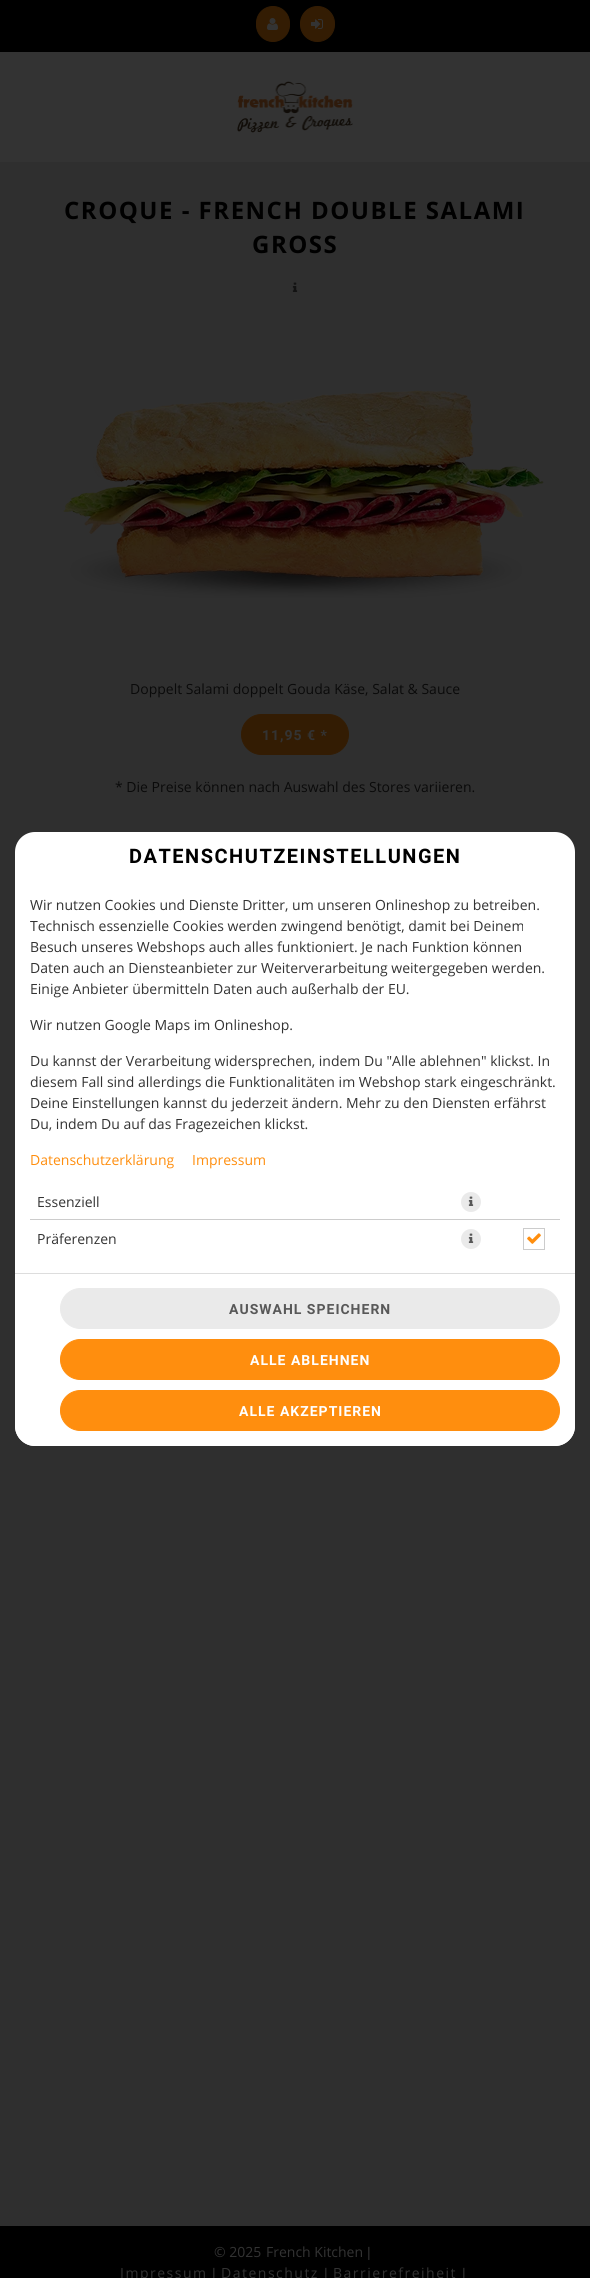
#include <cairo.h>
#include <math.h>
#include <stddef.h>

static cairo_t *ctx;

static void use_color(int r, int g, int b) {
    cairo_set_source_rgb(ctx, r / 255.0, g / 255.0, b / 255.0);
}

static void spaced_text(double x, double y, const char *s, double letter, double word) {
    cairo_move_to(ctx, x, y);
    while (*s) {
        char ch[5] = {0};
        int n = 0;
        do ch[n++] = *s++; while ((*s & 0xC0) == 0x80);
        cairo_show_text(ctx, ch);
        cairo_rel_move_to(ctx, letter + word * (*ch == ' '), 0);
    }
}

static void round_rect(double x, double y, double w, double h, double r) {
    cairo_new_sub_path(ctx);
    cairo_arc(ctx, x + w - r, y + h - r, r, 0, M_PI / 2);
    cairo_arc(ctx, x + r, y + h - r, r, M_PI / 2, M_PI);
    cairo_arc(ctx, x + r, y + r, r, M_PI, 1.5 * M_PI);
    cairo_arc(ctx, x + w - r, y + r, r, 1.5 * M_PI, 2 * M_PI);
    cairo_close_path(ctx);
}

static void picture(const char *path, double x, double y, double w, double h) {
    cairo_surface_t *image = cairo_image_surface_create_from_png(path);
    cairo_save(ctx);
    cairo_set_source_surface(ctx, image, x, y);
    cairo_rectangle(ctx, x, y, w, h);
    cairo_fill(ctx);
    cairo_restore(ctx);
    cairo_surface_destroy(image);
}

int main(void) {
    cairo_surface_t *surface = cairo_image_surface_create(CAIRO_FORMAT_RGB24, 590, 2278);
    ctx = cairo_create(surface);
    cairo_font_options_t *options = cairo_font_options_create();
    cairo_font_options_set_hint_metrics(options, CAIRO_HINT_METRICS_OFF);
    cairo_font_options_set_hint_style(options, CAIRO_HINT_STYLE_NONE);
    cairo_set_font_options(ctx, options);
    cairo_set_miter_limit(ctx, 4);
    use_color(47, 47, 47);
    cairo_paint(ctx);
    use_color(51, 51, 51);
    cairo_rectangle(ctx, 0, 52, 590, 110);
    cairo_fill(ctx);
    use_color(0, 0, 0);
    cairo_rectangle(ctx, 0, 0, 590, 52);
    cairo_fill(ctx);
    use_color(51, 28, 3);
    round_rect(256.5, 6.5, 33, 35, 16.5);
    cairo_fill_preserve(ctx);
    cairo_set_line_width(ctx, 1);
    cairo_stroke(ctx);
    picture("img1.png", 267, 18, 11, 12);
    round_rect(300.5, 6.5, 34, 35, 17);
    cairo_fill_preserve(ctx);
    cairo_stroke(ctx);
    picture("img2.png", 311, 19, 12, 10);
    picture("img3.png", 237, 81, 116, 52);
    cairo_select_font_face(ctx, "Open Sans", CAIRO_FONT_SLANT_NORMAL, CAIRO_FONT_WEIGHT_BOLD);
    cairo_set_font_size(ctx, 24);
    use_color(0, 0, 0);
    spaced_text(64, 219, "CROQUE - FRENCH DOUBLE SALAMI", 1.5, 0);
    spaced_text(252, 253, "GROSS", 1.5, 0);
    picture("img4.png", 292, 282, 6, 10);
    picture("img5.png", 63, 390, 481, 208);
    cairo_select_font_face(ctx, "Open Sans", CAIRO_FONT_SLANT_NORMAL, CAIRO_FONT_WEIGHT_NORMAL);
    cairo_set_font_size(ctx, 14);
    use_color(10, 10, 10);
    cairo_move_to(ctx, 130, 694);
    cairo_show_text(ctx, "Doppelt Salami doppelt Gouda Käse, Salat & Sauce");
    use_color(51, 28, 3);
    round_rect(241.5, 714.5, 107, 40, 20);
    cairo_fill_preserve(ctx);
    cairo_stroke(ctx);
    cairo_select_font_face(ctx, "Roboto", CAIRO_FONT_SLANT_NORMAL, CAIRO_FONT_WEIGHT_BOLD);
    use_color(51, 51, 51);
    spaced_text(262, 740, "11,95 € *", 1, 0);
    cairo_select_font_face(ctx, "Open Sans", CAIRO_FONT_SLANT_NORMAL, CAIRO_FONT_WEIGHT_NORMAL);
    use_color(10, 10, 10);
    cairo_move_to(ctx, 115, 792);
    cairo_show_text(ctx, "* Die Preise können nach Auswahl des Stores variieren.");
    use_color(255, 255, 255);
    round_rect(15, 832, 560, 614, 20);
    cairo_fill(ctx);
    cairo_select_font_face(ctx, "Roboto", CAIRO_FONT_SLANT_NORMAL, CAIRO_FONT_WEIGHT_BOLD);
    cairo_set_font_size(ctx, 20);
    use_color(0, 0, 0);
    spaced_text(129, 863, "DATENSCHUTZEINSTELLUNGEN", 1.5, 0);
    cairo_select_font_face(ctx, "Open Sans", CAIRO_FONT_SLANT_NORMAL, CAIRO_FONT_WEIGHT_NORMAL);
    cairo_set_font_size(ctx, 14);
    use_color(51, 51, 51);
    cairo_move_to(ctx, 30, 910);
    cairo_show_text(ctx, "Wir nutzen Cookies und Dienste Dritter, um unseren Onlineshop zu betreiben.");
    cairo_move_to(ctx, 30, 931);
    cairo_show_text(ctx, "Technisch essenzielle Cookies werden zwingend benötigt, damit bei Deinem");
    cairo_move_to(ctx, 30, 952);
    cairo_show_text(ctx, "Besuch unseres Webshops auch alles funktioniert. Je nach Funktion können");
    cairo_move_to(ctx, 30, 973);
    cairo_show_text(ctx, "Daten auch an Diensteanbieter zur Weiterverarbeitung weitergegeben werden.");
    cairo_move_to(ctx, 30, 994);
    cairo_show_text(ctx, "Einige Anbieter übermitteln Daten auch außerhalb der EU.");
    cairo_move_to(ctx, 30, 1030);
    cairo_show_text(ctx, "Wir nutzen Google Maps im Onlineshop.");
    cairo_move_to(ctx, 30, 1066);
    cairo_show_text(ctx, "Du kannst der Verarbeitung widersprechen, indem Du \"Alle ablehnen\" klickst. In");
    cairo_move_to(ctx, 30, 1087);
    cairo_show_text(ctx, "diesem Fall sind allerdings die Funktionalitäten im Webshop stark eingeschränkt.");
    cairo_move_to(ctx, 30, 1108);
    cairo_show_text(ctx, "Deine Einstellungen kannst du jederzeit ändern. Mehr zu den Diensten erfährst");
    cairo_move_to(ctx, 30, 1129);
    cairo_show_text(ctx, "Du, indem Du auf das Fragezeichen klickst.");
    use_color(255, 142, 14);
    cairo_move_to(ctx, 30, 1165);
    cairo_show_text(ctx, "Datenschutzerklärung");
    cairo_move_to(ctx, 192, 1165);
    cairo_show_text(ctx, "Impressum");
    use_color(204, 204, 204);
    cairo_rectangle(ctx, 30, 1219, 530, 1);
    cairo_fill(ctx);
    use_color(51, 51, 51);
    cairo_move_to(ctx, 37, 1207);
    cairo_show_text(ctx, "Essenziell");
    use_color(234, 234, 234);
    cairo_new_path(ctx);
    cairo_arc(ctx, 471, 1202, 10, 0, 2 * M_PI);
    cairo_fill(ctx);
    picture("img6.png", 468, 1196, 6, 10);
    use_color(51, 51, 51);
    cairo_move_to(ctx, 37, 1244);
    cairo_show_text(ctx, "Präferenzen");
    use_color(234, 234, 234);
    cairo_new_path(ctx);
    cairo_arc(ctx, 471, 1239, 10, 0, 2 * M_PI);
    cairo_fill(ctx);
    picture("img6.png", 468, 1233, 6, 10);
    cairo_rectangle(ctx, 523.5, 1228.5, 21, 21);
    use_color(204, 204, 204);
    cairo_stroke(ctx);
    picture("img7.png", 527, 1233, 14, 11);
    use_color(255, 255, 255);
    cairo_new_path(ctx);
    cairo_move_to(ctx, 15, 1273);
    cairo_line_to(ctx, 575, 1273);
    cairo_line_to(ctx, 575, 1426);
    cairo_curve_to(ctx, 575, 1437, 566, 1446, 555, 1446);
    cairo_line_to(ctx, 35, 1446);
    cairo_curve_to(ctx, 24, 1446, 15, 1437, 15, 1426);
    cairo_close_path(ctx);
    cairo_fill(ctx);
    use_color(221, 221, 221);
    cairo_rectangle(ctx, 15, 1273, 560, 1);
    cairo_fill(ctx);
    use_color(234, 234, 234);
    round_rect(60.5, 1288.5, 499, 40, 20);
    cairo_fill_preserve(ctx);
    cairo_stroke(ctx);
    cairo_select_font_face(ctx, "Roboto", CAIRO_FONT_SLANT_NORMAL, CAIRO_FONT_WEIGHT_BOLD);
    use_color(88, 88, 88);
    spaced_text(229, 1314, "AUSWAHL SPEICHERN", 1, 0);
    use_color(255, 142, 14);
    round_rect(60.5, 1339.5, 499, 40, 20);
    cairo_fill_preserve(ctx);
    cairo_stroke(ctx);
    use_color(255, 255, 255);
    spaced_text(250, 1365, "ALLE ABLEHNEN", 1, 0);
    use_color(255, 142, 14);
    round_rect(60.5, 1390.5, 499, 40, 20);
    cairo_fill_preserve(ctx);
    cairo_stroke(ctx);
    use_color(255, 255, 255);
    spaced_text(239, 1416, "ALLE AKZEPTIEREN", 1, 0);
    use_color(0, 0, 0);
    cairo_rectangle(ctx, 0, 2226, 590, 52);
    cairo_fill(ctx);
    cairo_select_font_face(ctx, "Open Sans", CAIRO_FONT_SLANT_NORMAL, CAIRO_FONT_WEIGHT_NORMAL);
    use_color(51, 51, 51);
    cairo_move_to(ctx, 214, 2257);
    cairo_show_text(ctx, "© 2025");
    cairo_move_to(ctx, 266, 2257);
    cairo_show_text(ctx, "French Kitchen");
    cairo_select_font_face(ctx, "Liberation Sans", CAIRO_FONT_SLANT_NORMAL, CAIRO_FONT_WEIGHT_NORMAL);
    cairo_move_to(ctx, 367, 2257);
    cairo_show_text(ctx, "|");
    cairo_select_font_face(ctx, "Open Sans", CAIRO_FONT_SLANT_NORMAL, CAIRO_FONT_WEIGHT_NORMAL);
    spaced_text(120, 2278, "Impressum", 1.5, 0);
    cairo_select_font_face(ctx, "Liberation Sans", CAIRO_FONT_SLANT_NORMAL, CAIRO_FONT_WEIGHT_NORMAL);
    cairo_move_to(ctx, 212, 2278);
    cairo_show_text(ctx, "|");
    cairo_select_font_face(ctx, "Open Sans", CAIRO_FONT_SLANT_NORMAL, CAIRO_FONT_WEIGHT_NORMAL);
    spaced_text(221, 2278, "Datenschutz", 1.5, 0);
    cairo_select_font_face(ctx, "Liberation Sans", CAIRO_FONT_SLANT_NORMAL, CAIRO_FONT_WEIGHT_NORMAL);
    cairo_move_to(ctx, 324, 2278);
    cairo_show_text(ctx, "|");
    cairo_select_font_face(ctx, "Open Sans", CAIRO_FONT_SLANT_NORMAL, CAIRO_FONT_WEIGHT_NORMAL);
    spaced_text(333, 2278, "Barrierefreiheit", 1.5, 0);
    cairo_select_font_face(ctx, "Liberation Sans", CAIRO_FONT_SLANT_NORMAL, CAIRO_FONT_WEIGHT_NORMAL);
    cairo_move_to(ctx, 462, 2278);
    cairo_show_text(ctx, "|");
    cairo_surface_write_to_png(surface, "result.png");
    cairo_font_options_destroy(options);
    cairo_destroy(ctx);
    cairo_surface_destroy(surface);
    return 0;
}
